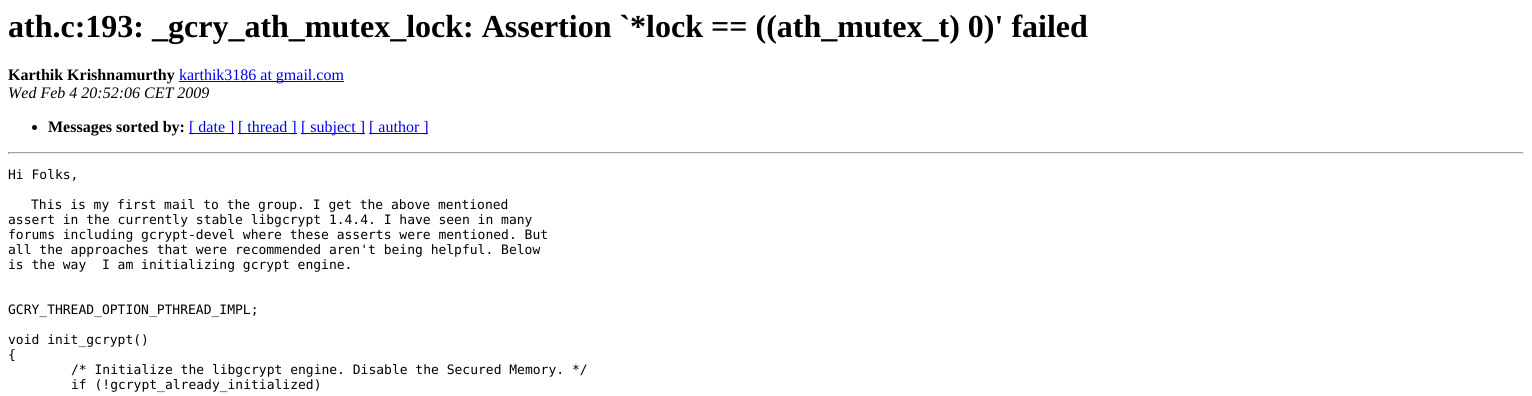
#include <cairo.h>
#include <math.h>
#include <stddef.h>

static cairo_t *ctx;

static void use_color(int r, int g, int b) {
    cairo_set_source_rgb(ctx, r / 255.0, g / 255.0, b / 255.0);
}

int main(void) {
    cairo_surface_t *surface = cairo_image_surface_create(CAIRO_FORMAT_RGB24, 1532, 396);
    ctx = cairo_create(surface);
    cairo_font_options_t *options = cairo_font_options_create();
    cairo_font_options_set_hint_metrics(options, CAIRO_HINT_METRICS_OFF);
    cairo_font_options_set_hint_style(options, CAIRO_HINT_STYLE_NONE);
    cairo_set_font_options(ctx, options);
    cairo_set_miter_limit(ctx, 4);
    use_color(255, 255, 255);
    cairo_paint(ctx);
    cairo_select_font_face(ctx, "Liberation Serif", CAIRO_FONT_SLANT_NORMAL, CAIRO_FONT_WEIGHT_BOLD);
    cairo_set_font_size(ctx, 32);
    use_color(0, 0, 0);
    cairo_move_to(ctx, 8, 37);
    cairo_show_text(ctx, "ath.c:193: _gcry_ath_mutex_lock: Assertion `*lock == ((ath_mutex_t) 0)' failed");
    cairo_set_font_size(ctx, 16);
    cairo_move_to(ctx, 8, 80);
    cairo_show_text(ctx, "Karthik Krishnamurthy");
    use_color(0, 0, 238);
    cairo_rectangle(ctx, 179, 81, 165, 1);
    cairo_fill(ctx);
    cairo_select_font_face(ctx, "Liberation Serif", CAIRO_FONT_SLANT_NORMAL, CAIRO_FONT_WEIGHT_NORMAL);
    cairo_move_to(ctx, 179, 80);
    cairo_show_text(ctx, "karthik3186 at gmail.com");
    cairo_select_font_face(ctx, "Liberation Serif", CAIRO_FONT_SLANT_ITALIC, CAIRO_FONT_WEIGHT_NORMAL);
    use_color(0, 0, 0);
    cairo_move_to(ctx, 8, 98);
    cairo_show_text(ctx, "Wed Feb 4 20:52:06 CET 2009");
    cairo_new_path(ctx);
    cairo_arc(ctx, 34.5, 127.5, 2.5, 0, 2 * M_PI);
    cairo_fill(ctx);
    cairo_select_font_face(ctx, "Liberation Serif", CAIRO_FONT_SLANT_NORMAL, CAIRO_FONT_WEIGHT_BOLD);
    cairo_move_to(ctx, 48, 132);
    cairo_show_text(ctx, "Messages sorted by:");
    use_color(0, 0, 238);
    cairo_rectangle(ctx, 189, 133, 45, 1);
    cairo_fill(ctx);
    cairo_select_font_face(ctx, "Liberation Serif", CAIRO_FONT_SLANT_NORMAL, CAIRO_FONT_WEIGHT_NORMAL);
    cairo_move_to(ctx, 189, 132);
    cairo_show_text(ctx, "[ date ]");
    cairo_rectangle(ctx, 238, 133, 59, 1);
    cairo_fill(ctx);
    cairo_move_to(ctx, 238, 132);
    cairo_show_text(ctx, "[ thread ]");
    cairo_rectangle(ctx, 301, 133, 64, 1);
    cairo_fill(ctx);
    cairo_move_to(ctx, 301, 132);
    cairo_show_text(ctx, "[ subject ]");
    cairo_rectangle(ctx, 369, 133, 59, 1);
    cairo_fill(ctx);
    cairo_move_to(ctx, 369, 132);
    cairo_show_text(ctx, "[ author ]");
    use_color(159, 159, 159);
    cairo_rectangle(ctx, 8, 152, 1516, 1);
    cairo_fill(ctx);
    use_color(238, 238, 238);
    cairo_rectangle(ctx, 1523, 152, 1, 2);
    cairo_fill(ctx);
    cairo_rectangle(ctx, 8, 153, 1516, 1);
    cairo_fill(ctx);
    use_color(159, 159, 159);
    cairo_rectangle(ctx, 8, 152, 1, 2);
    cairo_fill(ctx);
    cairo_select_font_face(ctx, "DejaVu Sans Mono", CAIRO_FONT_SLANT_NORMAL, CAIRO_FONT_WEIGHT_NORMAL);
    cairo_set_font_size(ctx, 13);
    use_color(0, 0, 0);
    cairo_move_to(ctx, 8, 179);
    cairo_show_text(ctx, "Hi Folks,");
    cairo_move_to(ctx, 31, 209);
    cairo_show_text(ctx, "This is my first mail to the group. I get the above mentioned");
    cairo_move_to(ctx, 8, 224);
    cairo_show_text(ctx, "assert in the currently stable libgcrypt 1.4.4. I have seen in many");
    cairo_move_to(ctx, 8, 239);
    cairo_show_text(ctx, "forums including gcrypt-devel where these asserts were mentioned. But");
    cairo_move_to(ctx, 8, 254);
    cairo_show_text(ctx, "all the approaches that were recommended aren't being helpful. Below");
    cairo_move_to(ctx, 8, 269);
    cairo_show_text(ctx, "is the way  I am initializing gcrypt engine.");
    cairo_move_to(ctx, 8, 314);
    cairo_show_text(ctx, "GCRY_THREAD_OPTION_PTHREAD_IMPL;");
    cairo_move_to(ctx, 8, 344);
    cairo_show_text(ctx, "void init_gcrypt()");
    cairo_move_to(ctx, 8, 359);
    cairo_show_text(ctx, "{");
    cairo_move_to(ctx, 71, 374);
    cairo_show_text(ctx, "/* Initialize the libgcrypt engine. Disable the Secured Memory. */");
    cairo_move_to(ctx, 71, 389);
    cairo_show_text(ctx, "if (!gcrypt_already_initialized)");
    cairo_surface_write_to_png(surface, "result.png");
    cairo_font_options_destroy(options);
    cairo_destroy(ctx);
    cairo_surface_destroy(surface);
    return 0;
}
